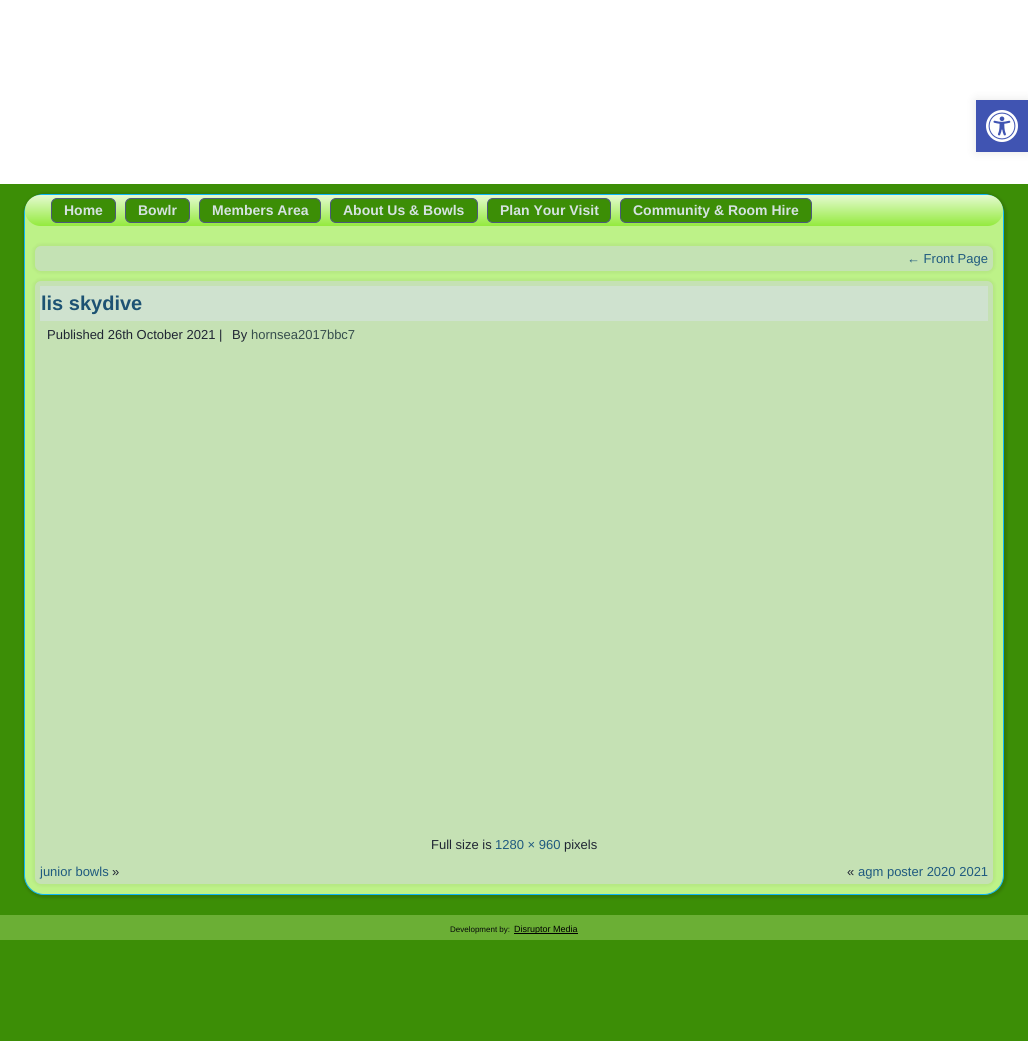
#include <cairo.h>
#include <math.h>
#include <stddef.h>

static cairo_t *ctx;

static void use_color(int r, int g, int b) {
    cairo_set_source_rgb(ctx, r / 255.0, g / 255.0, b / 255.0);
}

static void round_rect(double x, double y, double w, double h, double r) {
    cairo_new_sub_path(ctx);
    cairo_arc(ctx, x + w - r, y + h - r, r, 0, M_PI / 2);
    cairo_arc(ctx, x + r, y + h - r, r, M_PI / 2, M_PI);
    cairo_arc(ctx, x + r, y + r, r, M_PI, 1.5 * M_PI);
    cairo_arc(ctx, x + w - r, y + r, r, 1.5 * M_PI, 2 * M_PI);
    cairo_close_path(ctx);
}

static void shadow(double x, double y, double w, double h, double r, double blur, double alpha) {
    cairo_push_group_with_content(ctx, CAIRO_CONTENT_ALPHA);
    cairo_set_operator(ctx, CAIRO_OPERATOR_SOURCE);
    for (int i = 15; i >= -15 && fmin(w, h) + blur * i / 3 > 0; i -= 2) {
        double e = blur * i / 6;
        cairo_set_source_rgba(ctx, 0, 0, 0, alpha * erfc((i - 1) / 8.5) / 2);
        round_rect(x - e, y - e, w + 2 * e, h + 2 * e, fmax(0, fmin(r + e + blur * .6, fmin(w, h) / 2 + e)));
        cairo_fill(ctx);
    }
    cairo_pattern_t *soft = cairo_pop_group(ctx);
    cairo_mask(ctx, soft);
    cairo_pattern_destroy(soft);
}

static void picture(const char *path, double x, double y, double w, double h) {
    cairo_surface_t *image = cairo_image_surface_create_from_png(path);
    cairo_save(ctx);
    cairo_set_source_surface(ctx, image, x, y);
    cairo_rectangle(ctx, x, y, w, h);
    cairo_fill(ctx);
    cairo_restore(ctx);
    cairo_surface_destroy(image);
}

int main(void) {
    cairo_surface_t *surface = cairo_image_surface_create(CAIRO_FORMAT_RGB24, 1028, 1041);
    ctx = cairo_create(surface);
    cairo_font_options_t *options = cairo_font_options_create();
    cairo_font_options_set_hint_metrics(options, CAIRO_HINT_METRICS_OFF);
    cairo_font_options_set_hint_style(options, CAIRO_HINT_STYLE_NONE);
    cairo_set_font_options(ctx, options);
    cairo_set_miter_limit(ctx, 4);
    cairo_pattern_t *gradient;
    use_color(255, 255, 255);
    cairo_paint(ctx);
    use_color(0, 0, 0);
    shadow(976, 100, 52, 52, 0, 5, 0.1);
    use_color(64, 84, 178);
    cairo_rectangle(ctx, 976, 100, 52, 52);
    cairo_fill(ctx);
    picture("img1.png", 986, 110, 32, 32);
    use_color(60, 142, 6);
    cairo_rectangle(ctx, 0, 184, 1028, 857);
    cairo_fill(ctx);
    use_color(0, 0, 0);
    shadow(23, 193, 984, 705, 22, 1.5, 0.15);
    use_color(189, 242, 136);
    round_rect(24.5, 194.5, 979, 700, 19.5);
    cairo_fill_preserve(ctx);
    use_color(12, 182, 250);
    cairo_set_line_width(ctx, 1);
    cairo_stroke(ctx);
    gradient = cairo_pattern_create_linear(514, 195, 514, 226);
    cairo_pattern_add_color_stop_rgba(gradient, 0, 0.898, 0.98, 0.82, 1);
    cairo_pattern_add_color_stop_rgba(gradient, 1, 0.58, 0.918, 0.243, 1);
    cairo_set_source(ctx, gradient);
    cairo_pattern_destroy(gradient);
    round_rect(25, 195, 978, 31, 15.5);
    cairo_fill(ctx);
    use_color(60, 142, 6);
    round_rect(51.5, 198.5, 64, 24, 5.5);
    cairo_fill_preserve(ctx);
    use_color(76, 90, 123);
    cairo_stroke(ctx);
    cairo_select_font_face(ctx, "Liberation Sans", CAIRO_FONT_SLANT_NORMAL, CAIRO_FONT_WEIGHT_BOLD);
    cairo_set_font_size(ctx, 14);
    use_color(213, 226, 225);
    cairo_move_to(ctx, 64, 215);
    cairo_show_text(ctx, "Home");
    use_color(60, 142, 6);
    round_rect(125.5, 198.5, 64, 24, 5.5);
    cairo_fill_preserve(ctx);
    use_color(76, 90, 123);
    cairo_stroke(ctx);
    use_color(213, 226, 225);
    cairo_move_to(ctx, 138, 215);
    cairo_show_text(ctx, "Bowlr");
    use_color(60, 142, 6);
    round_rect(199.5, 198.5, 121, 24, 5.5);
    cairo_fill_preserve(ctx);
    use_color(76, 90, 123);
    cairo_stroke(ctx);
    use_color(213, 226, 225);
    cairo_move_to(ctx, 212, 215);
    cairo_show_text(ctx, "Members Area");
    use_color(60, 142, 6);
    round_rect(330.5, 198.5, 147, 24, 5.5);
    cairo_fill_preserve(ctx);
    use_color(76, 90, 123);
    cairo_stroke(ctx);
    use_color(213, 226, 225);
    cairo_move_to(ctx, 343, 215);
    cairo_show_text(ctx, "About Us & Bowls");
    use_color(60, 142, 6);
    round_rect(487.5, 198.5, 123, 24, 5.5);
    cairo_fill_preserve(ctx);
    use_color(76, 90, 123);
    cairo_stroke(ctx);
    use_color(213, 226, 225);
    cairo_move_to(ctx, 500, 215);
    cairo_show_text(ctx, "Plan Your Visit");
    use_color(60, 142, 6);
    round_rect(620.5, 198.5, 191, 24, 5.5);
    cairo_fill_preserve(ctx);
    use_color(76, 90, 123);
    cairo_stroke(ctx);
    use_color(213, 226, 225);
    cairo_move_to(ctx, 633, 215);
    cairo_show_text(ctx, "Community & Room Hire");
    use_color(0, 0, 0);
    shadow(33, 244, 962, 29, 8, 1.5, 0.05);
    use_color(196, 226, 180);
    round_rect(35, 246, 958, 25, 6);
    cairo_fill(ctx);
    cairo_select_font_face(ctx, "Liberation Sans", CAIRO_FONT_SLANT_NORMAL, CAIRO_FONT_WEIGHT_NORMAL);
    cairo_set_font_size(ctx, 13);
    use_color(31, 90, 127);
    cairo_move_to(ctx, 907, 263);
    cairo_show_text(ctx, "← Front Page");
    use_color(0, 0, 0);
    shadow(33, 279, 962, 607, 8, 1.5, 0.05);
    use_color(197, 225, 180);
    round_rect(35, 281, 958, 603, 6);
    cairo_fill(ctx);
    use_color(207, 226, 207);
    cairo_rectangle(ctx, 40, 286, 948, 35);
    cairo_fill(ctx);
    cairo_select_font_face(ctx, "Liberation Sans", CAIRO_FONT_SLANT_NORMAL, CAIRO_FONT_WEIGHT_BOLD);
    cairo_set_font_size(ctx, 20);
    use_color(28, 82, 115);
    cairo_move_to(ctx, 41, 310);
    cairo_show_text(ctx, "lis skydive");
    cairo_select_font_face(ctx, "Liberation Sans", CAIRO_FONT_SLANT_NORMAL, CAIRO_FONT_WEIGHT_NORMAL);
    cairo_set_font_size(ctx, 13);
    use_color(31, 37, 51);
    cairo_move_to(ctx, 47, 339);
    cairo_show_text(ctx, "Published 26th October 2021 |");
    cairo_move_to(ctx, 232, 339);
    cairo_show_text(ctx, "By");
    use_color(54, 78, 77);
    cairo_move_to(ctx, 251, 339);
    cairo_show_text(ctx, "hornsea2017bbc7");
    use_color(31, 37, 51);
    cairo_move_to(ctx, 431, 849);
    cairo_show_text(ctx, "Full size is");
    use_color(31, 90, 127);
    cairo_move_to(ctx, 495, 849);
    cairo_show_text(ctx, "1280 × 960");
    use_color(31, 37, 51);
    cairo_move_to(ctx, 564, 849);
    cairo_show_text(ctx, "pixels");
    use_color(31, 90, 127);
    cairo_move_to(ctx, 40, 876);
    cairo_show_text(ctx, "junior bowls");
    use_color(31, 37, 51);
    cairo_move_to(ctx, 112, 876);
    cairo_show_text(ctx, "»");
    cairo_move_to(ctx, 847, 876);
    cairo_show_text(ctx, "«");
    use_color(31, 90, 127);
    cairo_move_to(ctx, 858, 876);
    cairo_show_text(ctx, "agm poster 2020 2021");
    use_color(107, 175, 53);
    cairo_rectangle(ctx, 0, 915, 1028, 25);
    cairo_fill(ctx);
    cairo_set_font_size(ctx, 8);
    use_color(6, 7, 9);
    cairo_move_to(ctx, 450, 932);
    cairo_show_text(ctx, "Development by:");
    use_color(0, 0, 0);
    cairo_rectangle(ctx, 514, 933, 64, 1);
    cairo_fill(ctx);
    cairo_set_font_size(ctx, 9);
    cairo_move_to(ctx, 514, 932);
    cairo_show_text(ctx, "Disruptor Media");
    cairo_surface_write_to_png(surface, "result.png");
    cairo_font_options_destroy(options);
    cairo_destroy(ctx);
    cairo_surface_destroy(surface);
    return 0;
}
